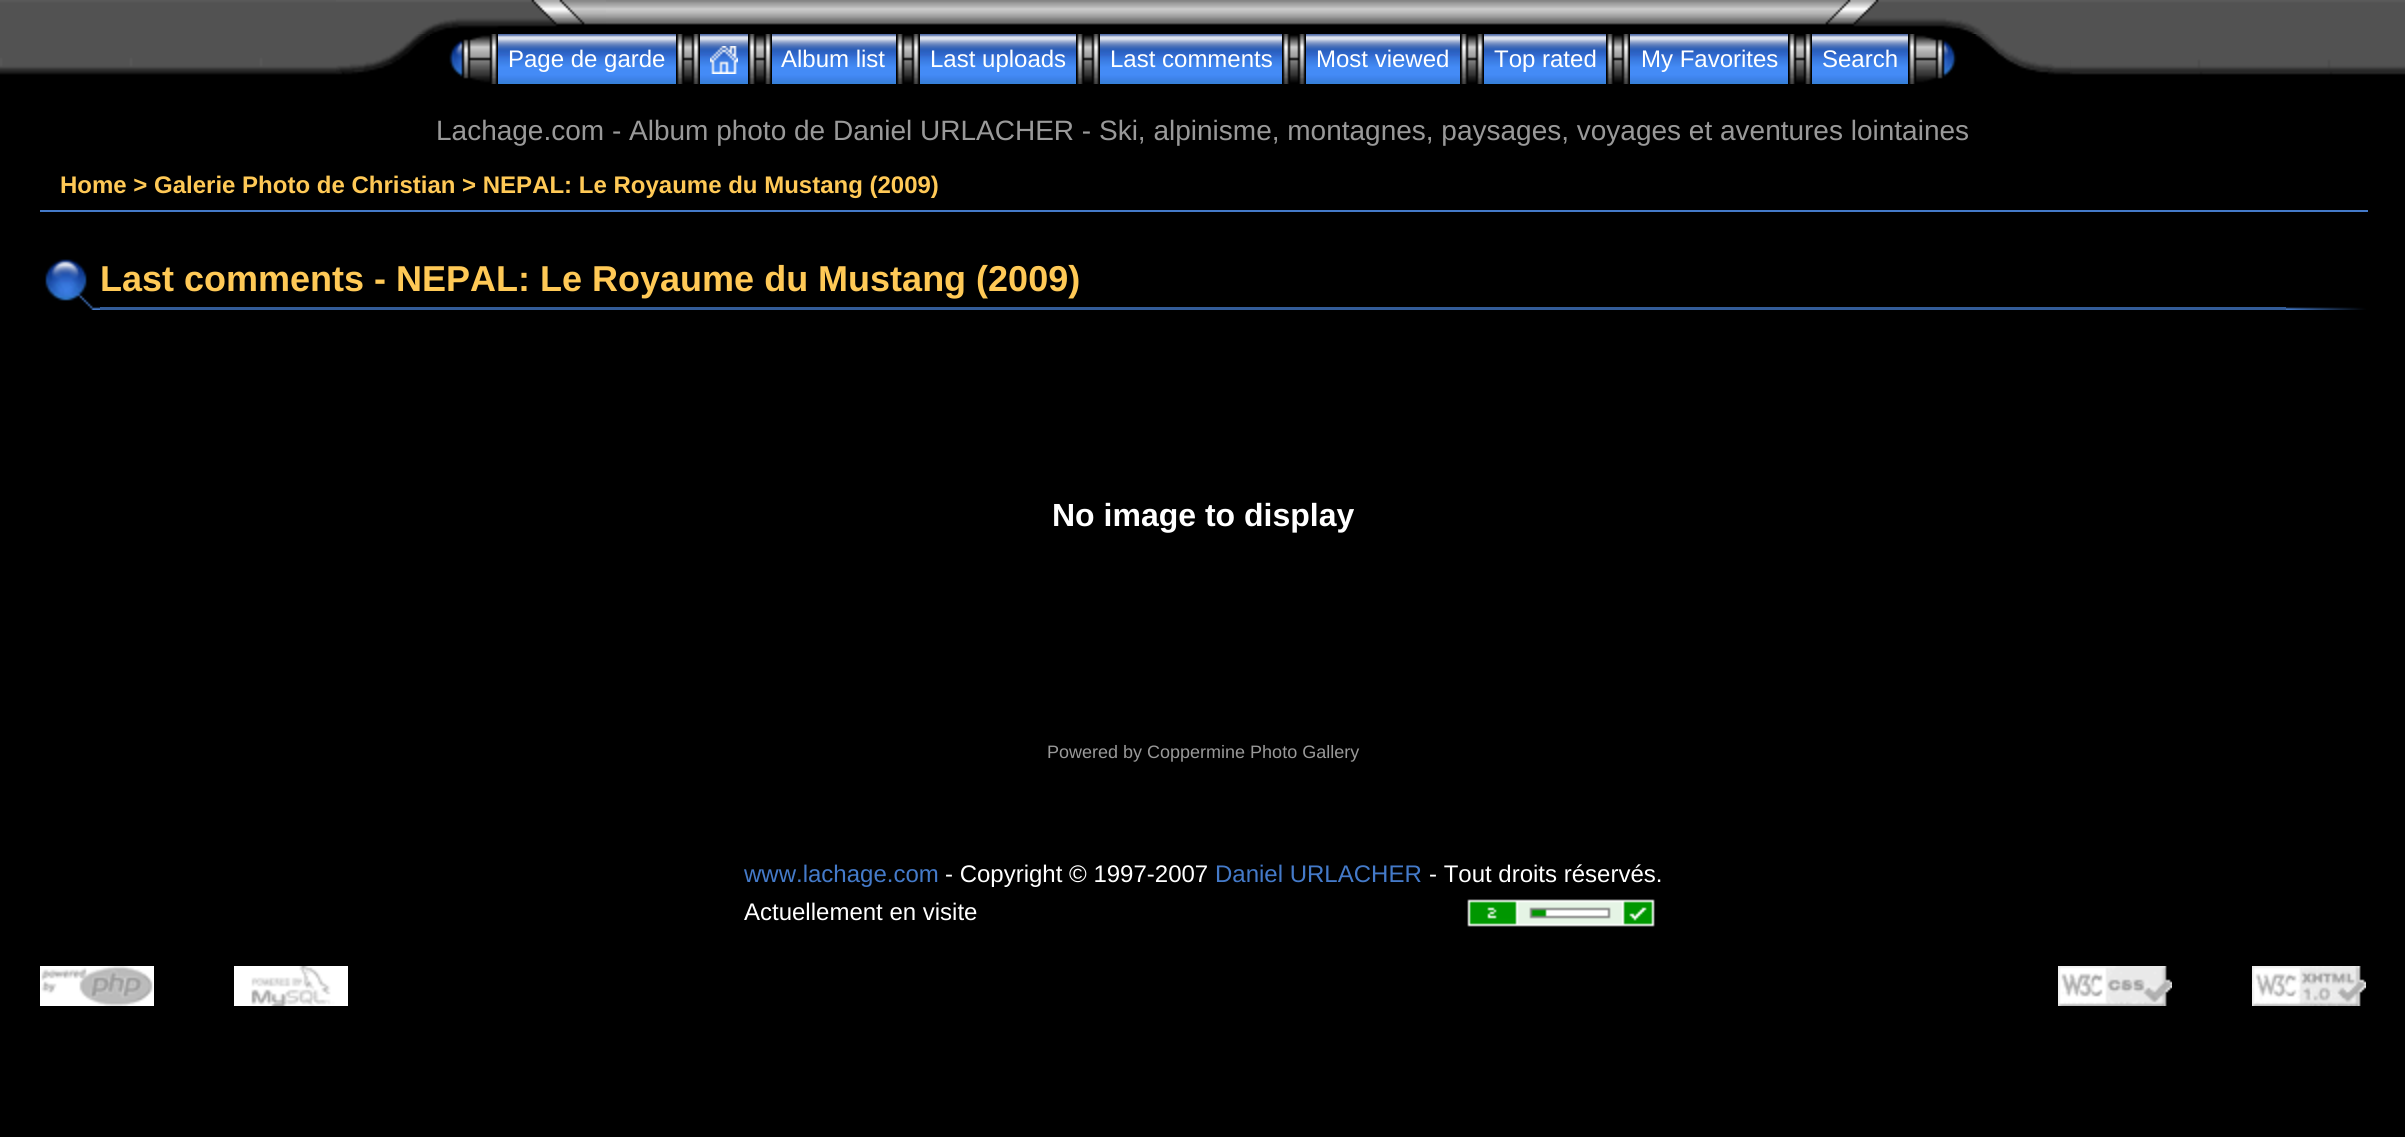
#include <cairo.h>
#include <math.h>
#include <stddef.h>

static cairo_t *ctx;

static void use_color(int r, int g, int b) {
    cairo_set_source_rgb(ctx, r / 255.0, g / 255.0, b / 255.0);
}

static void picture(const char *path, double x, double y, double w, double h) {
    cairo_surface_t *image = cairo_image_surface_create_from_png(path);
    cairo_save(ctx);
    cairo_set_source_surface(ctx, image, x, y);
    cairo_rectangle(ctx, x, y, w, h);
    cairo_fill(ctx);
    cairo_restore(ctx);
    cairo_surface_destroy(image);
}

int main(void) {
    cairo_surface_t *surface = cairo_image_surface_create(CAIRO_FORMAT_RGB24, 2405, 1137);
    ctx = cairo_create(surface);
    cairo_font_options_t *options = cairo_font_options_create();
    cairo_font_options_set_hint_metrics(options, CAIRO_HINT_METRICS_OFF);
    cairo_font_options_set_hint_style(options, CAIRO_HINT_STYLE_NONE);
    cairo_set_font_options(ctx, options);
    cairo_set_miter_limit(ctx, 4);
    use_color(0, 0, 0);
    cairo_paint(ctx);
    picture("img1.png", 0, 0, 336, 75);
    picture("img2.png", 336, 0, 270, 34);
    picture("img3.png", 606, 0, 1194, 25);
    picture("img4.png", 1800, 0, 270, 34);
    picture("img5.png", 336, 34, 94, 41);
    picture("img6.png", 449, 34, 48, 50);
    picture("img7.png", 498, 34, 178, 50);
    cairo_select_font_face(ctx, "Liberation Sans", CAIRO_FONT_SLANT_NORMAL, CAIRO_FONT_WEIGHT_NORMAL);
    cairo_set_font_size(ctx, 24);
    use_color(255, 255, 255);
    cairo_move_to(ctx, 508, 67);
    cairo_show_text(ctx, "Page de garde");
    picture("img8.png", 677, 34, 22, 50);
    picture("img9.png", 700, 34, 48, 50);
    picture("img10.png", 710, 46, 28, 28);
    picture("img8.png", 749, 34, 22, 50);
    picture("img11.png", 772, 34, 124, 50);
    cairo_move_to(ctx, 781, 67);
    cairo_show_text(ctx, "Album list");
    picture("img8.png", 897, 34, 22, 50);
    picture("img12.png", 920, 34, 156, 50);
    cairo_move_to(ctx, 930, 67);
    cairo_show_text(ctx, "Last uploads");
    picture("img8.png", 1077, 34, 22, 50);
    picture("img13.png", 1100, 34, 182, 50);
    cairo_move_to(ctx, 1110, 67);
    cairo_show_text(ctx, "Last comments");
    picture("img8.png", 1283, 34, 22, 50);
    picture("img14.png", 1306, 34, 154, 50);
    cairo_move_to(ctx, 1316, 67);
    cairo_show_text(ctx, "Most viewed");
    picture("img8.png", 1461, 34, 22, 50);
    picture("img15.png", 1484, 34, 122, 50);
    cairo_move_to(ctx, 1494, 67);
    cairo_show_text(ctx, "Top rated");
    picture("img8.png", 1607, 34, 22, 50);
    picture("img16.png", 1630, 34, 158, 50);
    cairo_move_to(ctx, 1641, 67);
    cairo_show_text(ctx, "My Favorites");
    picture("img8.png", 1789, 34, 22, 50);
    picture("img17.png", 1812, 34, 96, 50);
    cairo_move_to(ctx, 1822, 67);
    cairo_show_text(ctx, "Search");
    picture("img18.png", 1908, 34, 52, 50);
    picture("img19.png", 1975, 34, 95, 41);
    picture("img20.png", 2070, 0, 335, 75);
    cairo_set_font_size(ctx, 28);
    use_color(153, 153, 153);
    cairo_move_to(ctx, 436, 140);
    cairo_show_text(ctx, "Lachage.com - Album photo de Daniel URLACHER - Ski, alpinisme, montagnes, paysages, voyages et aventures lointaines");
    use_color(68, 122, 201);
    cairo_rectangle(ctx, 40, 210, 2328, 2);
    cairo_fill(ctx);
    cairo_select_font_face(ctx, "Liberation Sans", CAIRO_FONT_SLANT_NORMAL, CAIRO_FONT_WEIGHT_BOLD);
    cairo_set_font_size(ctx, 24);
    use_color(255, 201, 86);
    cairo_move_to(ctx, 60, 193);
    cairo_show_text(ctx, "Home > Galerie Photo de Christian > NEPAL: Le Royaume du Mustang (2009)");
    picture("img21.png", 40, 259, 60, 51);
    use_color(51, 92, 152);
    cairo_rectangle(ctx, 100, 307, 2186, 3);
    cairo_fill(ctx);
    cairo_set_font_size(ctx, 36);
    use_color(255, 201, 86);
    cairo_move_to(ctx, 100, 291);
    cairo_show_text(ctx, "Last comments - NEPAL: Le Royaume du Mustang (2009)");
    picture("img22.png", 2286, 307, 80, 3);
    cairo_set_font_size(ctx, 32);
    use_color(255, 255, 255);
    cairo_move_to(ctx, 1052, 526);
    cairo_show_text(ctx, "No image to display");
    cairo_select_font_face(ctx, "Liberation Sans", CAIRO_FONT_SLANT_NORMAL, CAIRO_FONT_WEIGHT_NORMAL);
    cairo_set_font_size(ctx, 18);
    use_color(153, 153, 153);
    cairo_move_to(ctx, 1047, 758);
    cairo_show_text(ctx, "Powered by Coppermine Photo Gallery");
    cairo_set_font_size(ctx, 24);
    use_color(68, 122, 201);
    cairo_move_to(ctx, 744, 882);
    cairo_show_text(ctx, "www.lachage.com");
    use_color(255, 255, 255);
    cairo_move_to(ctx, 945, 882);
    cairo_show_text(ctx, "- Copyright © 1997-2007");
    use_color(68, 122, 201);
    cairo_move_to(ctx, 1215, 882);
    cairo_show_text(ctx, "Daniel URLACHER");
    use_color(255, 255, 255);
    cairo_move_to(ctx, 1429, 882);
    cairo_show_text(ctx, "- Tout droits réservés.");
    cairo_move_to(ctx, 744, 920);
    cairo_show_text(ctx, "Actuellement en visite");
    picture("img23.png", 1467, 899, 188, 28);
    picture("img24.png", 40, 966, 114, 40);
    picture("img25.png", 234, 966, 114, 40);
    picture("img26.png", 2058, 966, 114, 40);
    picture("img27.png", 2252, 966, 114, 40);
    cairo_surface_write_to_png(surface, "result.png");
    cairo_font_options_destroy(options);
    cairo_destroy(ctx);
    cairo_surface_destroy(surface);
    return 0;
}
